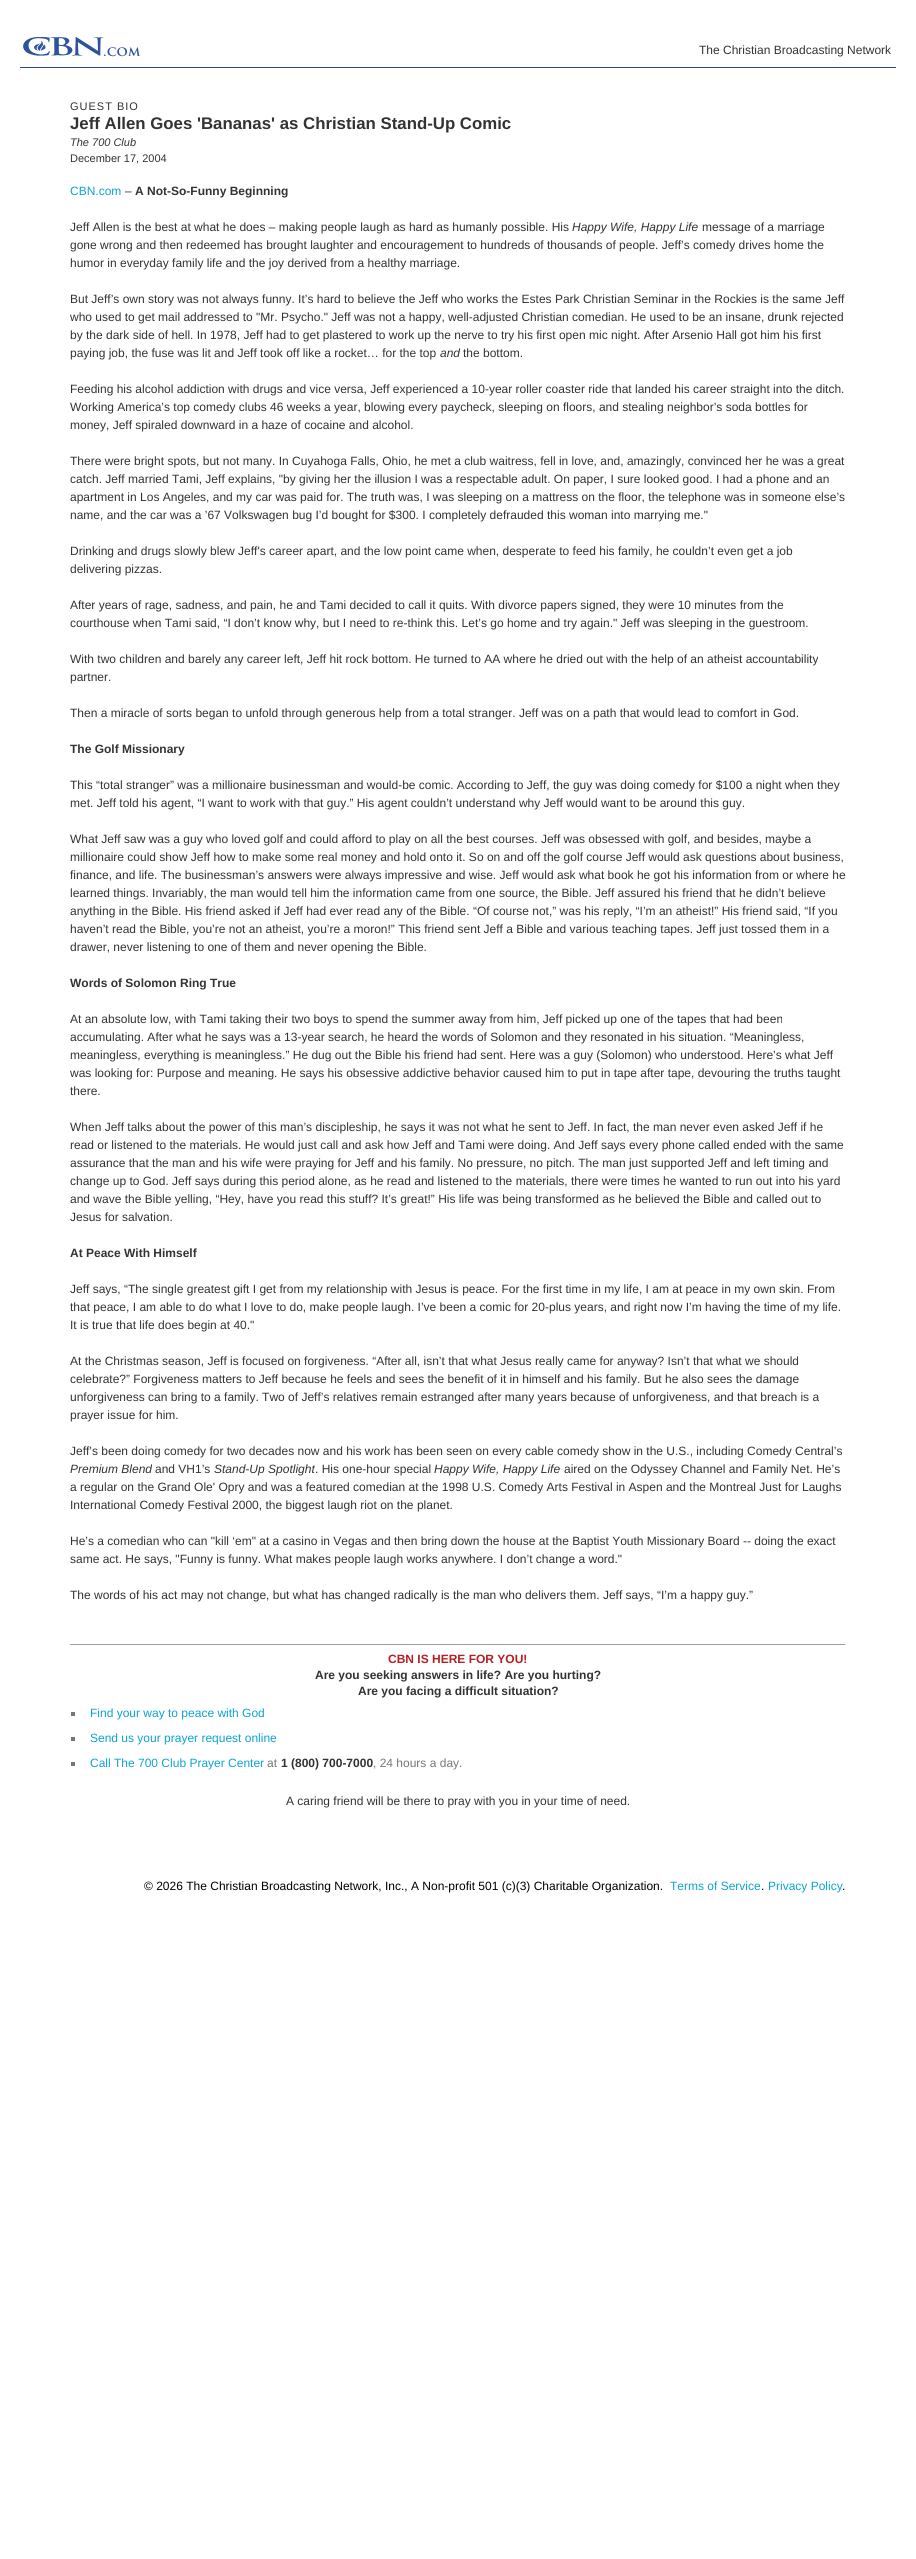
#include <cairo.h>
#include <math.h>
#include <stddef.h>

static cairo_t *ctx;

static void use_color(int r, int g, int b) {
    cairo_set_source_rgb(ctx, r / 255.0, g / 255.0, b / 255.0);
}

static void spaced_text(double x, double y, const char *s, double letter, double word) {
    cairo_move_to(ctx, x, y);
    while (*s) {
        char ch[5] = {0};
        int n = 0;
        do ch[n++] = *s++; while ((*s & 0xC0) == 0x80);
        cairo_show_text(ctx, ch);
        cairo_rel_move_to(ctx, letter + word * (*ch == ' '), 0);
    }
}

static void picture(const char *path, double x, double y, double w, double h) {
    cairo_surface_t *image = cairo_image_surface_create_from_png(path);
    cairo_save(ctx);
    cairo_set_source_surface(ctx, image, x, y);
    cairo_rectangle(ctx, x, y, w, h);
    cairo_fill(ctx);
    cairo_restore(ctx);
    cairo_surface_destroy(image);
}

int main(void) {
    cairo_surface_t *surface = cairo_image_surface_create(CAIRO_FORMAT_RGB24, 916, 2559);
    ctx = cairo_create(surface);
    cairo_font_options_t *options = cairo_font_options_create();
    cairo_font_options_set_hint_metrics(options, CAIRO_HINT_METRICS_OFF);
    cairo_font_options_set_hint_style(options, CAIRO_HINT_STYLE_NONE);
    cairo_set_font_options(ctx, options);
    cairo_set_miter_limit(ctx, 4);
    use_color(255, 255, 255);
    cairo_paint(ctx);
    use_color(34, 75, 135);
    cairo_rectangle(ctx, 20, 67, 876, 1);
    cairo_fill(ctx);
    picture("img1.png", 23, 37, 118, 20);
    cairo_select_font_face(ctx, "Liberation Sans", CAIRO_FONT_SLANT_NORMAL, CAIRO_FONT_WEIGHT_NORMAL);
    cairo_set_font_size(ctx, 12);
    use_color(51, 51, 51);
    cairo_move_to(ctx, 699, 54);
    cairo_show_text(ctx, "The Christian Broadcasting Network");
    cairo_set_font_size(ctx, 11);
    spaced_text(70, 110, "GUEST BIO", 1, 0);
    cairo_select_font_face(ctx, "Liberation Sans", CAIRO_FONT_SLANT_NORMAL, CAIRO_FONT_WEIGHT_BOLD);
    cairo_set_font_size(ctx, 16.8);
    cairo_move_to(ctx, 70, 129);
    cairo_show_text(ctx, "Jeff Allen Goes 'Bananas' as Christian Stand-Up Comic");
    cairo_select_font_face(ctx, "Liberation Sans", CAIRO_FONT_SLANT_ITALIC, CAIRO_FONT_WEIGHT_NORMAL);
    cairo_set_font_size(ctx, 11);
    cairo_move_to(ctx, 70, 146);
    cairo_show_text(ctx, "The 700 Club");
    cairo_select_font_face(ctx, "Liberation Sans", CAIRO_FONT_SLANT_NORMAL, CAIRO_FONT_WEIGHT_NORMAL);
    cairo_move_to(ctx, 70, 162);
    cairo_show_text(ctx, "December 17, 2004");
    cairo_set_font_size(ctx, 12);
    use_color(12, 163, 212);
    cairo_move_to(ctx, 70, 195);
    cairo_show_text(ctx, "CBN.com");
    use_color(51, 51, 51);
    cairo_move_to(ctx, 125, 195);
    cairo_show_text(ctx, "–");
    cairo_select_font_face(ctx, "Liberation Sans", CAIRO_FONT_SLANT_NORMAL, CAIRO_FONT_WEIGHT_BOLD);
    cairo_move_to(ctx, 135, 195);
    cairo_show_text(ctx, "A Not-So-Funny Beginning");
    cairo_select_font_face(ctx, "Liberation Sans", CAIRO_FONT_SLANT_NORMAL, CAIRO_FONT_WEIGHT_NORMAL);
    cairo_move_to(ctx, 70, 231);
    cairo_show_text(ctx, "Jeff Allen is the best at what he does – making people laugh as hard as humanly possible. His");
    cairo_select_font_face(ctx, "Liberation Sans", CAIRO_FONT_SLANT_ITALIC, CAIRO_FONT_WEIGHT_NORMAL);
    cairo_move_to(ctx, 572, 231);
    cairo_show_text(ctx, "Happy Wife, Happy Life");
    cairo_select_font_face(ctx, "Liberation Sans", CAIRO_FONT_SLANT_NORMAL, CAIRO_FONT_WEIGHT_NORMAL);
    cairo_move_to(ctx, 702, 231);
    cairo_show_text(ctx, "message of a marriage");
    cairo_move_to(ctx, 70, 249);
    cairo_show_text(ctx, "gone wrong and then redeemed has brought laughter and encouragement to hundreds of thousands of people. Jeff’s comedy drives home the");
    cairo_move_to(ctx, 70, 267);
    cairo_show_text(ctx, "humor in everyday family life and the joy derived from a healthy marriage.");
    cairo_move_to(ctx, 70, 303);
    cairo_show_text(ctx, "But Jeff’s own story was not always funny. It’s hard to believe the Jeff who works the Estes Park Christian Seminar in the Rockies is the same Jeff");
    cairo_move_to(ctx, 70, 321);
    cairo_show_text(ctx, "who used to get mail addressed to \"Mr. Psycho.\" Jeff was not a happy, well-adjusted Christian comedian. He used to be an insane, drunk rejected");
    cairo_move_to(ctx, 70, 339);
    cairo_show_text(ctx, "by the dark side of hell. In 1978, Jeff had to get plastered to work up the nerve to try his first open mic night. After Arsenio Hall got him his first");
    cairo_move_to(ctx, 70, 357);
    cairo_show_text(ctx, "paying job, the fuse was lit and Jeff took off like a rocket… for the top");
    cairo_select_font_face(ctx, "Liberation Sans", CAIRO_FONT_SLANT_ITALIC, CAIRO_FONT_WEIGHT_NORMAL);
    cairo_move_to(ctx, 440, 357);
    cairo_show_text(ctx, "and");
    cairo_select_font_face(ctx, "Liberation Sans", CAIRO_FONT_SLANT_NORMAL, CAIRO_FONT_WEIGHT_NORMAL);
    cairo_move_to(ctx, 463, 357);
    cairo_show_text(ctx, "the bottom.");
    cairo_move_to(ctx, 70, 393);
    cairo_show_text(ctx, "Feeding his alcohol addiction with drugs and vice versa, Jeff experienced a 10-year roller coaster ride that landed his career straight into the ditch.");
    cairo_move_to(ctx, 70, 411);
    cairo_show_text(ctx, "Working America’s top comedy clubs 46 weeks a year, blowing every paycheck, sleeping on floors, and stealing neighbor’s soda bottles for");
    cairo_move_to(ctx, 70, 429);
    cairo_show_text(ctx, "money, Jeff spiraled downward in a haze of cocaine and alcohol.");
    cairo_move_to(ctx, 70, 465);
    cairo_show_text(ctx, "There were bright spots, but not many. In Cuyahoga Falls, Ohio, he met a club waitress, fell in love, and, amazingly, convinced her he was a great");
    cairo_move_to(ctx, 70, 483);
    cairo_show_text(ctx, "catch. Jeff married Tami, Jeff explains, \"by giving her the illusion I was a respectable adult. On paper, I sure looked good. I had a phone and an");
    cairo_move_to(ctx, 70, 501);
    cairo_show_text(ctx, "apartment in Los Angeles, and my car was paid for. The truth was, I was sleeping on a mattress on the floor, the telephone was in someone else’s");
    cairo_move_to(ctx, 70, 519);
    cairo_show_text(ctx, "name, and the car was a ’67 Volkswagen bug I’d bought for $300. I completely defrauded this woman into marrying me.\"");
    cairo_move_to(ctx, 70, 555);
    cairo_show_text(ctx, "Drinking and drugs slowly blew Jeff's career apart, and the low point came when, desperate to feed his family, he couldn’t even get a job");
    cairo_move_to(ctx, 70, 573);
    cairo_show_text(ctx, "delivering pizzas.");
    cairo_move_to(ctx, 70, 609);
    cairo_show_text(ctx, "After years of rage, sadness, and pain, he and Tami decided to call it quits. With divorce papers signed, they were 10 minutes from the");
    cairo_move_to(ctx, 70, 627);
    cairo_show_text(ctx, "courthouse when Tami said, “I don’t know why, but I need to re-think this. Let’s go home and try again.\" Jeff was sleeping in the guestroom.");
    cairo_move_to(ctx, 70, 663);
    cairo_show_text(ctx, "With two children and barely any career left, Jeff hit rock bottom. He turned to AA where he dried out with the help of an atheist accountability");
    cairo_move_to(ctx, 70, 681);
    cairo_show_text(ctx, "partner.");
    cairo_move_to(ctx, 70, 717);
    cairo_show_text(ctx, "Then a miracle of sorts began to unfold through generous help from a total stranger. Jeff was on a path that would lead to comfort in God.");
    cairo_select_font_face(ctx, "Liberation Sans", CAIRO_FONT_SLANT_NORMAL, CAIRO_FONT_WEIGHT_BOLD);
    cairo_move_to(ctx, 70, 753);
    cairo_show_text(ctx, "The Golf Missionary");
    cairo_select_font_face(ctx, "Liberation Sans", CAIRO_FONT_SLANT_NORMAL, CAIRO_FONT_WEIGHT_NORMAL);
    cairo_move_to(ctx, 70, 789);
    cairo_show_text(ctx, "This “total stranger” was a millionaire businessman and would-be comic. According to Jeff, the guy was doing comedy for $100 a night when they");
    cairo_move_to(ctx, 70, 807);
    cairo_show_text(ctx, "met. Jeff told his agent, “I want to work with that guy.” His agent couldn’t understand why Jeff would want to be around this guy.");
    cairo_move_to(ctx, 70, 843);
    cairo_show_text(ctx, "What Jeff saw was a guy who loved golf and could afford to play on all the best courses. Jeff was obsessed with golf, and besides, maybe a");
    cairo_move_to(ctx, 70, 861);
    cairo_show_text(ctx, "millionaire could show Jeff how to make some real money and hold onto it. So on and off the golf course Jeff would ask questions about business,");
    cairo_move_to(ctx, 70, 879);
    cairo_show_text(ctx, "finance, and life. The businessman’s answers were always impressive and wise. Jeff would ask what book he got his information from or where he");
    cairo_move_to(ctx, 70, 897);
    cairo_show_text(ctx, "learned things. Invariably, the man would tell him the information came from one source, the Bible. Jeff assured his friend that he didn’t believe");
    cairo_move_to(ctx, 70, 915);
    cairo_show_text(ctx, "anything in the Bible. His friend asked if Jeff had ever read any of the Bible. “Of course not,” was his reply, “I’m an atheist!” His friend said, “If you");
    cairo_move_to(ctx, 70, 933);
    cairo_show_text(ctx, "haven’t read the Bible, you’re not an atheist, you’re a moron!” This friend sent Jeff a Bible and various teaching tapes. Jeff just tossed them in a");
    cairo_move_to(ctx, 70, 951);
    cairo_show_text(ctx, "drawer, never listening to one of them and never opening the Bible.");
    cairo_select_font_face(ctx, "Liberation Sans", CAIRO_FONT_SLANT_NORMAL, CAIRO_FONT_WEIGHT_BOLD);
    cairo_move_to(ctx, 70, 987);
    cairo_show_text(ctx, "Words of Solomon Ring True");
    cairo_select_font_face(ctx, "Liberation Sans", CAIRO_FONT_SLANT_NORMAL, CAIRO_FONT_WEIGHT_NORMAL);
    cairo_move_to(ctx, 70, 1023);
    cairo_show_text(ctx, "At an absolute low, with Tami taking their two boys to spend the summer away from him, Jeff picked up one of the tapes that had been");
    cairo_move_to(ctx, 70, 1041);
    cairo_show_text(ctx, "accumulating. After what he says was a 13-year search, he heard the words of Solomon and they resonated in his situation. “Meaningless,");
    cairo_move_to(ctx, 70, 1059);
    cairo_show_text(ctx, "meaningless, everything is meaningless.” He dug out the Bible his friend had sent. Here was a guy (Solomon) who understood. Here’s what Jeff");
    cairo_move_to(ctx, 70, 1077);
    cairo_show_text(ctx, "was looking for: Purpose and meaning. He says his obsessive addictive behavior caused him to put in tape after tape, devouring the truths taught");
    cairo_move_to(ctx, 70, 1095);
    cairo_show_text(ctx, "there.");
    cairo_move_to(ctx, 70, 1131);
    cairo_show_text(ctx, "When Jeff talks about the power of this man’s discipleship, he says it was not what he sent to Jeff. In fact, the man never even asked Jeff if he");
    cairo_move_to(ctx, 70, 1149);
    cairo_show_text(ctx, "read or listened to the materials. He would just call and ask how Jeff and Tami were doing. And Jeff says every phone called ended with the same");
    cairo_move_to(ctx, 70, 1167);
    cairo_show_text(ctx, "assurance that the man and his wife were praying for Jeff and his family. No pressure, no pitch. The man just supported Jeff and left timing and");
    cairo_move_to(ctx, 70, 1185);
    cairo_show_text(ctx, "change up to God. Jeff says during this period alone, as he read and listened to the materials, there were times he wanted to run out into his yard");
    cairo_move_to(ctx, 70, 1203);
    cairo_show_text(ctx, "and wave the Bible yelling, “Hey, have you read this stuff? It’s great!” His life was being transformed as he believed the Bible and called out to");
    cairo_move_to(ctx, 70, 1221);
    cairo_show_text(ctx, "Jesus for salvation.");
    cairo_select_font_face(ctx, "Liberation Sans", CAIRO_FONT_SLANT_NORMAL, CAIRO_FONT_WEIGHT_BOLD);
    cairo_move_to(ctx, 70, 1257);
    cairo_show_text(ctx, "At Peace With Himself");
    cairo_select_font_face(ctx, "Liberation Sans", CAIRO_FONT_SLANT_NORMAL, CAIRO_FONT_WEIGHT_NORMAL);
    cairo_move_to(ctx, 70, 1293);
    cairo_show_text(ctx, "Jeff says, “The single greatest gift I get from my relationship with Jesus is peace. For the first time in my life, I am at peace in my own skin. From");
    cairo_move_to(ctx, 70, 1311);
    cairo_show_text(ctx, "that peace, I am able to do what I love to do, make people laugh. I’ve been a comic for 20-plus years, and right now I’m having the time of my life.");
    cairo_move_to(ctx, 70, 1329);
    cairo_show_text(ctx, "It is true that life does begin at 40.\"");
    cairo_move_to(ctx, 70, 1365);
    cairo_show_text(ctx, "At the Christmas season, Jeff is focused on forgiveness. “After all, isn’t that what Jesus really came for anyway? Isn’t that what we should");
    cairo_move_to(ctx, 70, 1383);
    cairo_show_text(ctx, "celebrate?” Forgiveness matters to Jeff because he feels and sees the benefit of it in himself and his family. But he also sees the damage");
    cairo_move_to(ctx, 70, 1401);
    cairo_show_text(ctx, "unforgiveness can bring to a family. Two of Jeff’s relatives remain estranged after many years because of unforgiveness, and that breach is a");
    cairo_move_to(ctx, 70, 1419);
    cairo_show_text(ctx, "prayer issue for him.");
    cairo_move_to(ctx, 70, 1455);
    cairo_show_text(ctx, "Jeff’s been doing comedy for two decades now and his work has been seen on every cable comedy show in the U.S., including Comedy Central’s");
    cairo_select_font_face(ctx, "Liberation Sans", CAIRO_FONT_SLANT_ITALIC, CAIRO_FONT_WEIGHT_NORMAL);
    cairo_move_to(ctx, 70, 1473);
    cairo_show_text(ctx, "Premium Blend");
    cairo_select_font_face(ctx, "Liberation Sans", CAIRO_FONT_SLANT_NORMAL, CAIRO_FONT_WEIGHT_NORMAL);
    cairo_move_to(ctx, 155, 1473);
    cairo_show_text(ctx, "and VH1’s");
    cairo_select_font_face(ctx, "Liberation Sans", CAIRO_FONT_SLANT_ITALIC, CAIRO_FONT_WEIGHT_NORMAL);
    cairo_move_to(ctx, 214, 1473);
    cairo_show_text(ctx, "Stand-Up Spotlight");
    cairo_select_font_face(ctx, "Liberation Sans", CAIRO_FONT_SLANT_NORMAL, CAIRO_FONT_WEIGHT_NORMAL);
    cairo_move_to(ctx, 315, 1473);
    cairo_show_text(ctx, ". His one-hour special");
    cairo_select_font_face(ctx, "Liberation Sans", CAIRO_FONT_SLANT_ITALIC, CAIRO_FONT_WEIGHT_NORMAL);
    cairo_move_to(ctx, 434, 1473);
    cairo_show_text(ctx, "Happy Wife, Happy Life");
    cairo_select_font_face(ctx, "Liberation Sans", CAIRO_FONT_SLANT_NORMAL, CAIRO_FONT_WEIGHT_NORMAL);
    cairo_move_to(ctx, 564, 1473);
    cairo_show_text(ctx, "aired on the Odyssey Channel and Family Net. He’s");
    cairo_move_to(ctx, 70, 1491);
    cairo_show_text(ctx, "a regular on the Grand Ole' Opry and was a featured comedian at the 1998 U.S. Comedy Arts Festival in Aspen and the Montreal Just for Laughs");
    cairo_move_to(ctx, 70, 1509);
    cairo_show_text(ctx, "International Comedy Festival 2000, the biggest laugh riot on the planet.");
    cairo_move_to(ctx, 70, 1545);
    cairo_show_text(ctx, "He’s a comedian who can \"kill ‘em\" at a casino in Vegas and then bring down the house at the Baptist Youth Missionary Board -- doing the exact");
    cairo_move_to(ctx, 70, 1563);
    cairo_show_text(ctx, "same act. He says, \"Funny is funny. What makes people laugh works anywhere. I don’t change a word.\"");
    cairo_move_to(ctx, 70, 1599);
    cairo_show_text(ctx, "The words of his act may not change, but what has changed radically is the man who delivers them. Jeff says, “I’m a happy guy.”");
    use_color(159, 159, 159);
    cairo_rectangle(ctx, 70, 1644, 776, 1);
    cairo_fill(ctx);
    use_color(238, 238, 238);
    cairo_rectangle(ctx, 845, 1644, 1, 1);
    cairo_fill(ctx);
    cairo_select_font_face(ctx, "Liberation Sans", CAIRO_FONT_SLANT_NORMAL, CAIRO_FONT_WEIGHT_BOLD);
    use_color(181, 32, 37);
    cairo_move_to(ctx, 388, 1663);
    cairo_show_text(ctx, "CBN IS HERE FOR YOU!");
    use_color(51, 51, 51);
    cairo_move_to(ctx, 315, 1679);
    cairo_show_text(ctx, "Are you seeking answers in life? Are you hurting?");
    cairo_move_to(ctx, 358, 1695);
    cairo_show_text(ctx, "Are you facing a difficult situation?");
    use_color(119, 119, 119);
    cairo_rectangle(ctx, 71, 1712, 4, 4);
    cairo_fill(ctx);
    cairo_select_font_face(ctx, "Liberation Sans", CAIRO_FONT_SLANT_NORMAL, CAIRO_FONT_WEIGHT_NORMAL);
    use_color(12, 163, 212);
    cairo_move_to(ctx, 90, 1717);
    cairo_show_text(ctx, "Find your way to peace with God");
    use_color(119, 119, 119);
    cairo_rectangle(ctx, 71, 1737, 4, 4);
    cairo_fill(ctx);
    use_color(12, 163, 212);
    cairo_move_to(ctx, 90, 1742);
    cairo_show_text(ctx, "Send us your prayer request online");
    use_color(119, 119, 119);
    cairo_rectangle(ctx, 71, 1762, 4, 4);
    cairo_fill(ctx);
    use_color(12, 163, 212);
    cairo_move_to(ctx, 90, 1767);
    cairo_show_text(ctx, "Call The 700 Club Prayer Center");
    use_color(119, 119, 119);
    cairo_move_to(ctx, 267, 1767);
    cairo_show_text(ctx, "at");
    cairo_select_font_face(ctx, "Liberation Sans", CAIRO_FONT_SLANT_NORMAL, CAIRO_FONT_WEIGHT_BOLD);
    use_color(51, 51, 51);
    cairo_move_to(ctx, 281, 1767);
    cairo_show_text(ctx, "1 (800) 700-7000");
    cairo_select_font_face(ctx, "Liberation Sans", CAIRO_FONT_SLANT_NORMAL, CAIRO_FONT_WEIGHT_NORMAL);
    use_color(119, 119, 119);
    cairo_move_to(ctx, 373, 1767);
    cairo_show_text(ctx, ", 24 hours a day.");
    use_color(51, 51, 51);
    cairo_move_to(ctx, 286, 1805);
    cairo_show_text(ctx, "A caring friend will be there to pray with you in your time of need.");
    use_color(0, 0, 0);
    cairo_move_to(ctx, 144, 1890);
    cairo_show_text(ctx, "© 2026 The Christian Broadcasting Network, Inc., A Non-profit 501 (c)(3) Charitable Organization.");
    use_color(12, 163, 212);
    cairo_move_to(ctx, 670, 1890);
    cairo_show_text(ctx, "Terms of Service");
    use_color(0, 0, 0);
    cairo_move_to(ctx, 761, 1890);
    cairo_show_text(ctx, ".");
    use_color(12, 163, 212);
    cairo_move_to(ctx, 768, 1890);
    cairo_show_text(ctx, "Privacy Policy");
    use_color(0, 0, 0);
    cairo_move_to(ctx, 842, 1890);
    cairo_show_text(ctx, ".");
    cairo_surface_write_to_png(surface, "result.png");
    cairo_font_options_destroy(options);
    cairo_destroy(ctx);
    cairo_surface_destroy(surface);
    return 0;
}
